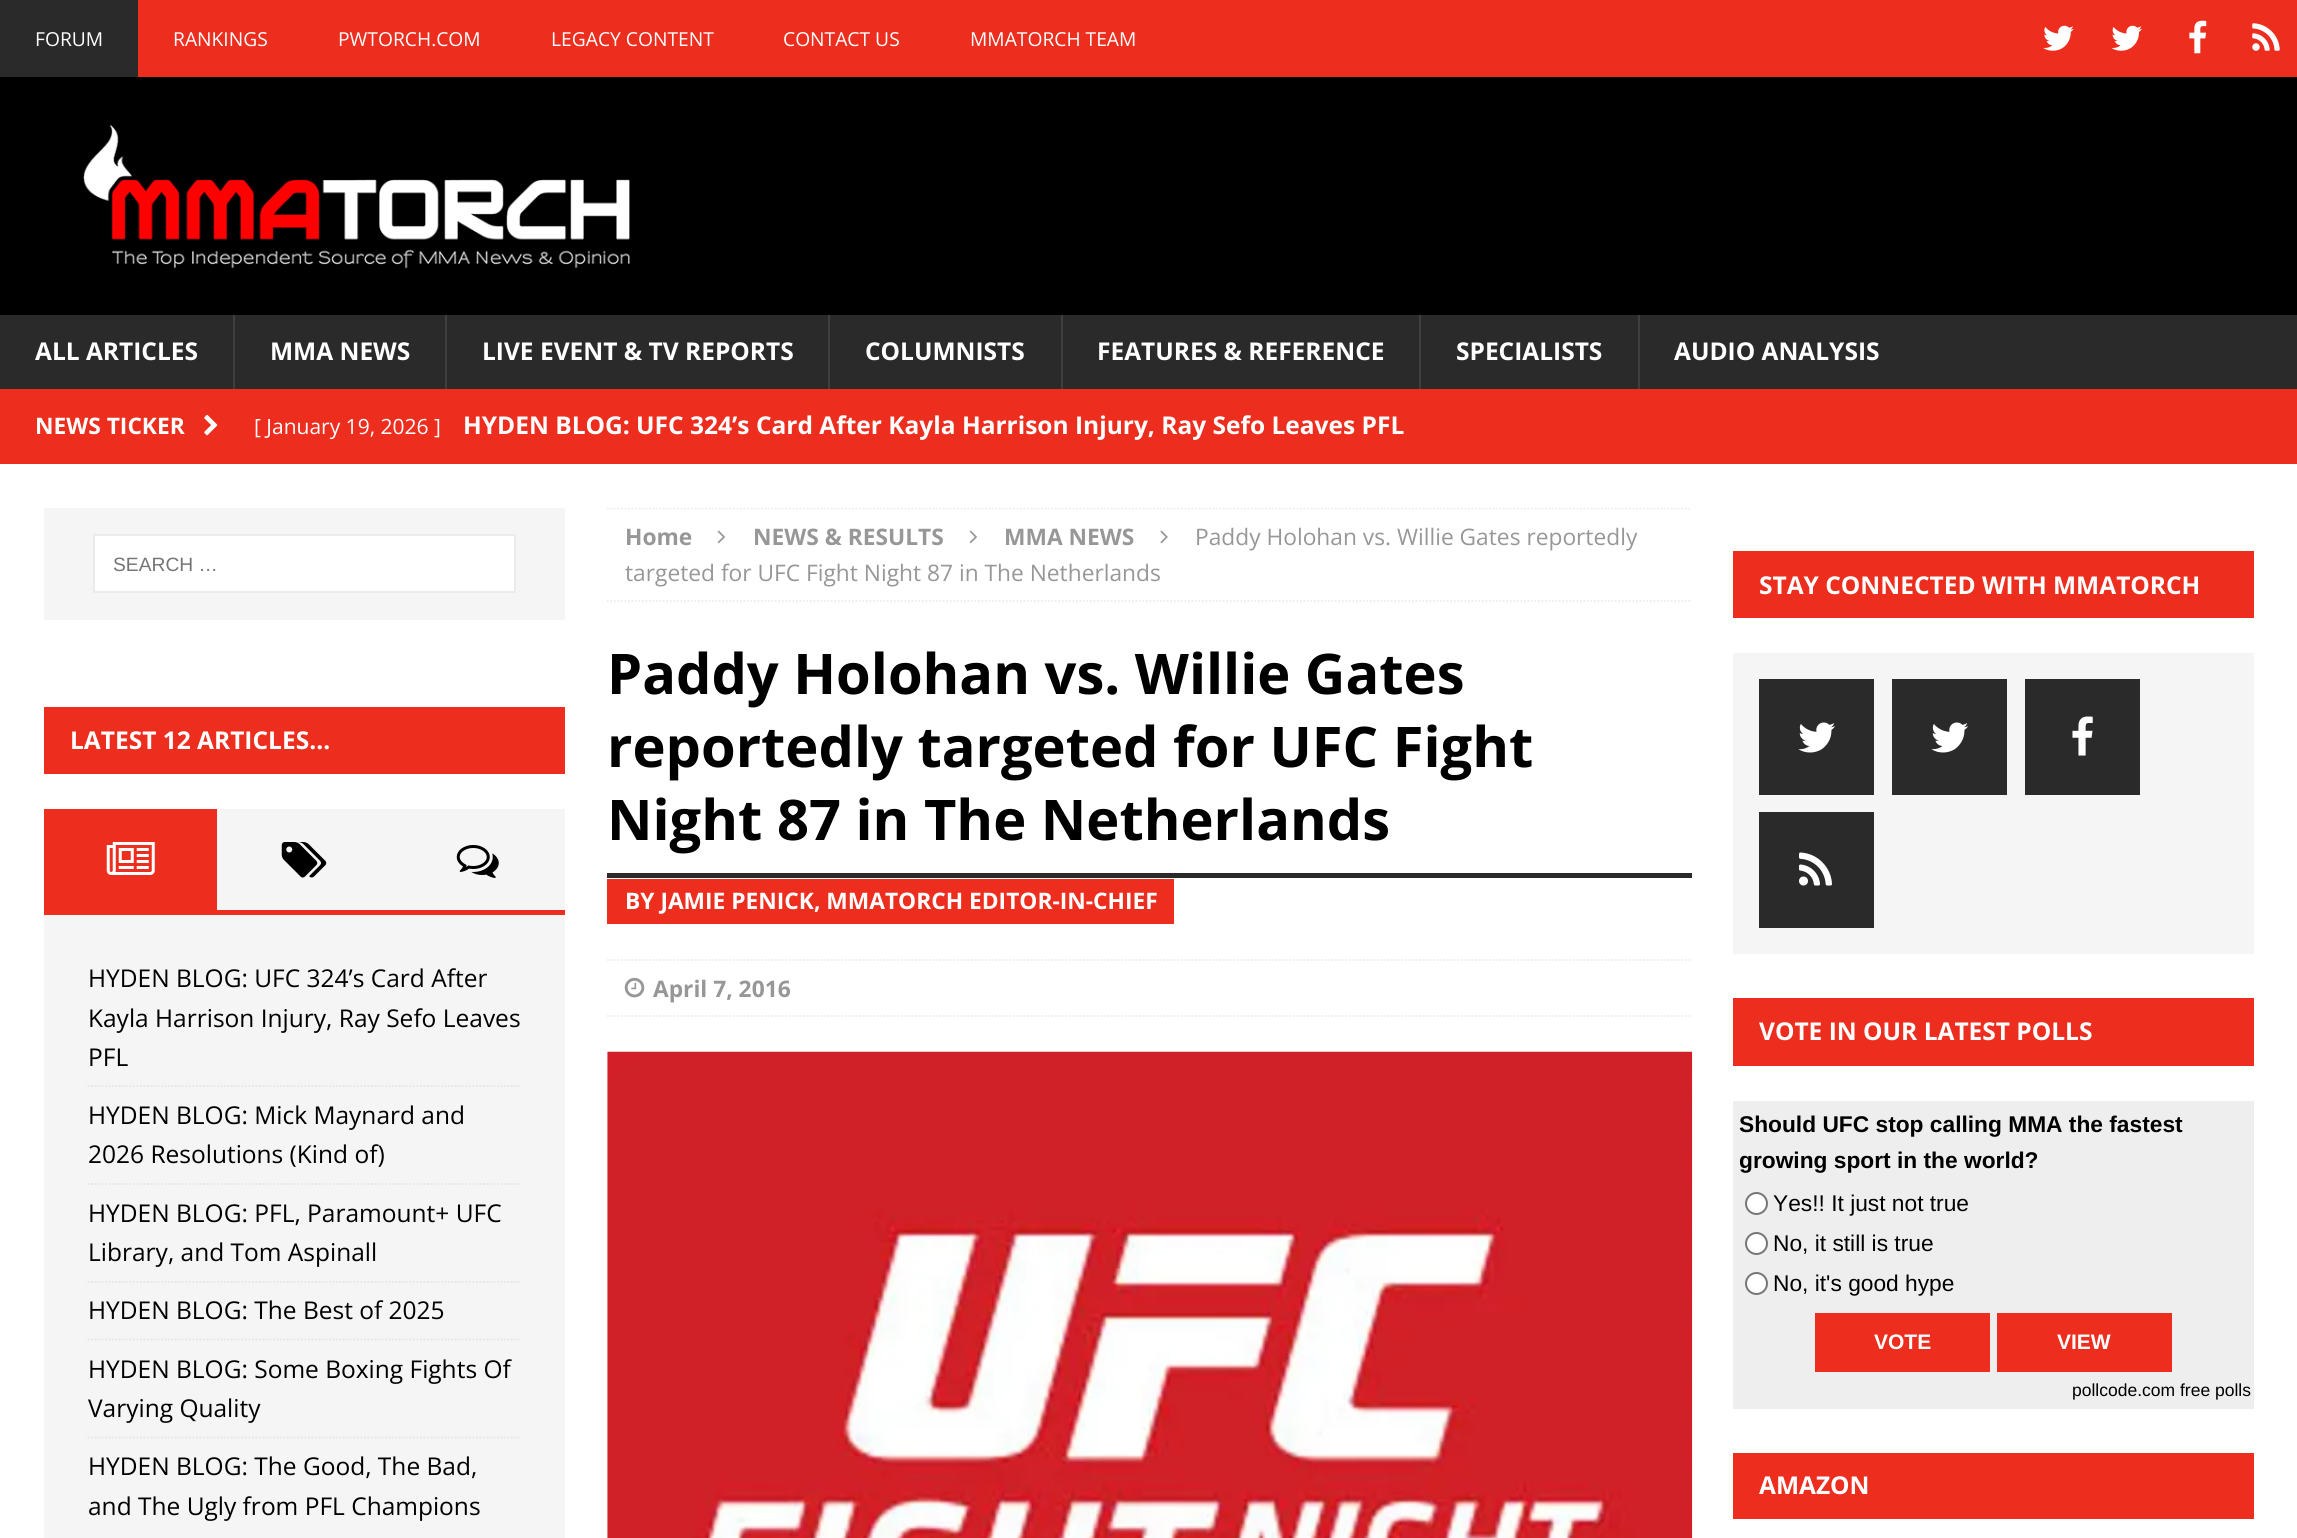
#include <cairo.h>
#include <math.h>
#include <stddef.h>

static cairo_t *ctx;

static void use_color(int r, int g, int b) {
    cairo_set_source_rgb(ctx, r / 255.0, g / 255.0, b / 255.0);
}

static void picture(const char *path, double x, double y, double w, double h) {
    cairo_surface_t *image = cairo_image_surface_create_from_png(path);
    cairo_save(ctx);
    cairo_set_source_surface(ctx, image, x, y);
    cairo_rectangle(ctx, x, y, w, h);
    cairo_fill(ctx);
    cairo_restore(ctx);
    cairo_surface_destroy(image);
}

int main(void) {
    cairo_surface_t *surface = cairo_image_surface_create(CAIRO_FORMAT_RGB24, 2297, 1538);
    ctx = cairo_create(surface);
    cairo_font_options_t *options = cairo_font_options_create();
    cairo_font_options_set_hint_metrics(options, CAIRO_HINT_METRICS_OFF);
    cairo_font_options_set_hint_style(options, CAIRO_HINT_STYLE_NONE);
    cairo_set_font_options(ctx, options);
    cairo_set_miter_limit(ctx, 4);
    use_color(237, 45, 29);
    cairo_paint(ctx);
    use_color(42, 42, 42);
    cairo_rectangle(ctx, 0, 0, 138, 77);
    cairo_fill(ctx);
    cairo_select_font_face(ctx, "Open Sans", CAIRO_FONT_SLANT_NORMAL, CAIRO_FONT_WEIGHT_NORMAL);
    cairo_set_font_size(ctx, 19.25);
    use_color(255, 255, 255);
    cairo_move_to(ctx, 35, 46);
    cairo_show_text(ctx, "FORUM");
    cairo_move_to(ctx, 173, 46);
    cairo_show_text(ctx, "RANKINGS");
    cairo_move_to(ctx, 338, 46);
    cairo_show_text(ctx, "PWTORCH.COM");
    cairo_move_to(ctx, 551, 46);
    cairo_show_text(ctx, "LEGACY CONTENT");
    cairo_move_to(ctx, 783, 46);
    cairo_show_text(ctx, "CONTACT US");
    cairo_move_to(ctx, 970, 46);
    cairo_show_text(ctx, "MMATORCH TEAM");
    picture("img1.png", 2043, 25, 31, 26);
    picture("img2.png", 2111, 25, 31, 26);
    picture("img3.png", 2189, 20, 18, 34);
    picture("img4.png", 2252, 23, 28, 28);
    use_color(0, 0, 0);
    cairo_rectangle(ctx, 0, 77, 2297, 238);
    cairo_fill(ctx);
    picture("img5.png", 83, 125, 547, 144);
    use_color(42, 42, 42);
    cairo_rectangle(ctx, 0, 315, 2297, 74);
    cairo_fill(ctx);
    cairo_select_font_face(ctx, "Open Sans", CAIRO_FONT_SLANT_NORMAL, CAIRO_FONT_WEIGHT_BOLD);
    cairo_set_font_size(ctx, 24.5);
    use_color(255, 255, 255);
    cairo_move_to(ctx, 35, 360);
    cairo_show_text(ctx, "ALL ARTICLES");
    use_color(63, 63, 63);
    cairo_rectangle(ctx, 233, 315, 2, 74);
    cairo_fill(ctx);
    use_color(255, 255, 255);
    cairo_move_to(ctx, 270, 360);
    cairo_show_text(ctx, "MMA NEWS");
    use_color(63, 63, 63);
    cairo_rectangle(ctx, 445, 315, 2, 74);
    cairo_fill(ctx);
    use_color(255, 255, 255);
    cairo_move_to(ctx, 482, 360);
    cairo_show_text(ctx, "LIVE EVENT & TV REPORTS");
    use_color(63, 63, 63);
    cairo_rectangle(ctx, 828, 315, 2, 74);
    cairo_fill(ctx);
    use_color(255, 255, 255);
    cairo_move_to(ctx, 865, 360);
    cairo_show_text(ctx, "COLUMNISTS");
    use_color(63, 63, 63);
    cairo_rectangle(ctx, 1061, 315, 2, 74);
    cairo_fill(ctx);
    use_color(255, 255, 255);
    cairo_move_to(ctx, 1097, 360);
    cairo_show_text(ctx, "FEATURES & REFERENCE");
    use_color(63, 63, 63);
    cairo_rectangle(ctx, 1419, 315, 2, 74);
    cairo_fill(ctx);
    use_color(255, 255, 255);
    cairo_move_to(ctx, 1456, 360);
    cairo_show_text(ctx, "SPECIALISTS");
    use_color(63, 63, 63);
    cairo_rectangle(ctx, 1638, 315, 2, 74);
    cairo_fill(ctx);
    use_color(255, 255, 255);
    cairo_move_to(ctx, 1674, 360);
    cairo_show_text(ctx, "AUDIO ANALYSIS");
    cairo_set_font_size(ctx, 22.75);
    cairo_move_to(ctx, 35, 434);
    cairo_show_text(ctx, "NEWS TICKER");
    picture("img6.png", 204, 414, 14, 22);
    cairo_select_font_face(ctx, "Open Sans", CAIRO_FONT_SLANT_NORMAL, CAIRO_FONT_WEIGHT_NORMAL);
    cairo_set_font_size(ctx, 21);
    cairo_move_to(ctx, 254, 434);
    cairo_show_text(ctx, "[ January 19, 2026 ]");
    cairo_select_font_face(ctx, "Open Sans", CAIRO_FONT_SLANT_NORMAL, CAIRO_FONT_WEIGHT_BOLD);
    cairo_set_font_size(ctx, 24.5);
    cairo_move_to(ctx, 463, 434);
    cairo_show_text(ctx, "HYDEN BLOG: UFC 324’s Card After Kayla Harrison Injury, Ray Sefo Leaves PFL");
    cairo_rectangle(ctx, 0, 464, 2297, 1074);
    cairo_fill(ctx);
    use_color(245, 245, 245);
    cairo_rectangle(ctx, 44, 508, 521, 112);
    cairo_fill(ctx);
    use_color(255, 255, 255);
    cairo_rectangle(ctx, 94, 535, 421, 57);
    cairo_fill_preserve(ctx);
    use_color(235, 235, 235);
    cairo_stroke(ctx);
    cairo_select_font_face(ctx, "Liberation Sans", CAIRO_FONT_SLANT_NORMAL, CAIRO_FONT_WEIGHT_NORMAL);
    cairo_set_font_size(ctx, 19.25);
    use_color(117, 117, 117);
    cairo_move_to(ctx, 113, 571);
    cairo_show_text(ctx, "SEARCH …");
    use_color(237, 45, 29);
    cairo_rectangle(ctx, 44, 707, 521, 67);
    cairo_fill(ctx);
    cairo_select_font_face(ctx, "Open Sans", CAIRO_FONT_SLANT_NORMAL, CAIRO_FONT_WEIGHT_BOLD);
    cairo_set_font_size(ctx, 24.5);
    use_color(255, 255, 255);
    cairo_move_to(ctx, 70, 749);
    cairo_show_text(ctx, "LATEST 12 ARTICLES…");
    use_color(237, 45, 29);
    cairo_rectangle(ctx, 44, 910, 521, 5);
    cairo_fill(ctx);
    cairo_rectangle(ctx, 44, 809, 173, 101);
    cairo_fill(ctx);
    picture("img7.png", 106, 842, 49, 33);
    use_color(245, 245, 245);
    cairo_rectangle(ctx, 217, 809, 348, 101);
    cairo_fill(ctx);
    picture("img8.png", 281, 842, 46, 36);
    picture("img9.png", 456, 845, 43, 33);
    cairo_rectangle(ctx, 44, 915, 521, 623);
    cairo_fill(ctx);
    cairo_new_path(ctx);
    cairo_move_to(ctx, 87.5, 1086);
    cairo_line_to(ctx, 521.5, 1086);
    use_color(229, 229, 229);
    cairo_set_line_width(ctx, 1.8);
    cairo_set_dash(ctx, (double[]){1.75, 1.75}, 2, 0);
    cairo_stroke(ctx);
    cairo_select_font_face(ctx, "Open Sans", CAIRO_FONT_SLANT_NORMAL, CAIRO_FONT_WEIGHT_NORMAL);
    use_color(0, 0, 0);
    cairo_move_to(ctx, 88, 987);
    cairo_show_text(ctx, "HYDEN BLOG: UFC 324’s Card After");
    cairo_move_to(ctx, 88, 1027);
    cairo_show_text(ctx, "Kayla Harrison Injury, Ray Sefo Leaves");
    cairo_move_to(ctx, 88, 1066);
    cairo_show_text(ctx, "PFL");
    cairo_new_path(ctx);
    cairo_move_to(ctx, 87.5, 1184);
    cairo_line_to(ctx, 521.5, 1184);
    use_color(229, 229, 229);
    cairo_stroke(ctx);
    use_color(0, 0, 0);
    cairo_move_to(ctx, 88, 1124);
    cairo_show_text(ctx, "HYDEN BLOG: Mick Maynard and");
    cairo_move_to(ctx, 88, 1163);
    cairo_show_text(ctx, "2026 Resolutions (Kind of)");
    cairo_new_path(ctx);
    cairo_move_to(ctx, 87.5, 1282);
    cairo_line_to(ctx, 521.5, 1282);
    use_color(229, 229, 229);
    cairo_stroke(ctx);
    use_color(0, 0, 0);
    cairo_move_to(ctx, 88, 1222);
    cairo_show_text(ctx, "HYDEN BLOG: PFL, Paramount+ UFC");
    cairo_move_to(ctx, 88, 1261);
    cairo_show_text(ctx, "Library, and Tom Aspinall");
    cairo_new_path(ctx);
    cairo_move_to(ctx, 87.5, 1339.5);
    cairo_line_to(ctx, 521.5, 1339.5);
    use_color(229, 229, 229);
    cairo_stroke(ctx);
    use_color(0, 0, 0);
    cairo_move_to(ctx, 88, 1319);
    cairo_show_text(ctx, "HYDEN BLOG: The Best of 2025");
    cairo_new_path(ctx);
    cairo_move_to(ctx, 87.5, 1437.5);
    cairo_line_to(ctx, 521.5, 1437.5);
    use_color(229, 229, 229);
    cairo_stroke(ctx);
    use_color(0, 0, 0);
    cairo_move_to(ctx, 88, 1378);
    cairo_show_text(ctx, "HYDEN BLOG: Some Boxing Fights Of");
    cairo_move_to(ctx, 88, 1417);
    cairo_show_text(ctx, "Varying Quality");
    cairo_move_to(ctx, 88, 1475);
    cairo_show_text(ctx, "HYDEN BLOG: The Good, The Bad,");
    cairo_move_to(ctx, 88, 1515);
    cairo_show_text(ctx, "and The Ugly from PFL Champions");
    cairo_save(ctx);
    cairo_rectangle(ctx, 607, 508, 1085, 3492);
    cairo_clip(ctx);
    cairo_new_path(ctx);
    cairo_move_to(ctx, 607, 508.5);
    cairo_line_to(ctx, 1692, 508.5);
    use_color(235, 235, 235);
    cairo_stroke(ctx);
    cairo_restore(ctx);
    cairo_new_path(ctx);
    cairo_move_to(ctx, 607, 601);
    cairo_line_to(ctx, 1692, 601);
    use_color(235, 235, 235);
    cairo_stroke(ctx);
    cairo_select_font_face(ctx, "Open Sans", CAIRO_FONT_SLANT_NORMAL, CAIRO_FONT_WEIGHT_BOLD);
    cairo_set_font_size(ctx, 22.75);
    use_color(151, 151, 151);
    cairo_move_to(ctx, 625, 545);
    cairo_show_text(ctx, "Home");
    picture("img10.png", 717, 530, 8, 14);
    cairo_move_to(ctx, 753, 545);
    cairo_show_text(ctx, "NEWS & RESULTS");
    picture("img10.png", 969, 530, 8, 14);
    cairo_move_to(ctx, 1004, 545);
    cairo_show_text(ctx, "MMA NEWS");
    picture("img11.png", 1160, 530, 8, 14);
    cairo_select_font_face(ctx, "Open Sans", CAIRO_FONT_SLANT_NORMAL, CAIRO_FONT_WEIGHT_NORMAL);
    cairo_move_to(ctx, 1195, 545);
    cairo_show_text(ctx, "Paddy Holohan vs. Willie Gates reportedly");
    cairo_move_to(ctx, 625, 581);
    cairo_show_text(ctx, "targeted for UFC Fight Night 87 in The Netherlands");
    cairo_select_font_face(ctx, "Open Sans", CAIRO_FONT_SLANT_NORMAL, CAIRO_FONT_WEIGHT_BOLD);
    cairo_set_font_size(ctx, 56);
    use_color(0, 0, 0);
    cairo_move_to(ctx, 607, 694);
    cairo_show_text(ctx, "Paddy Holohan vs. Willie Gates");
    cairo_move_to(ctx, 607, 767);
    cairo_show_text(ctx, "reportedly targeted for UFC Fight");
    cairo_move_to(ctx, 607, 840);
    cairo_show_text(ctx, "Night 87 in The Netherlands");
    use_color(42, 42, 42);
    cairo_rectangle(ctx, 607, 873, 1085, 5);
    cairo_fill(ctx);
    use_color(237, 45, 29);
    cairo_rectangle(ctx, 607, 879, 567, 45);
    cairo_fill(ctx);
    cairo_set_font_size(ctx, 22.75);
    use_color(255, 255, 255);
    cairo_move_to(ctx, 625, 909);
    cairo_show_text(ctx, "BY JAMIE PENICK, MMATORCH EDITOR-IN-CHIEF");
    cairo_new_path(ctx);
    cairo_move_to(ctx, 607, 960);
    cairo_line_to(ctx, 1692, 960);
    use_color(235, 235, 235);
    cairo_stroke(ctx);
    cairo_new_path(ctx);
    cairo_move_to(ctx, 607, 1016);
    cairo_line_to(ctx, 1692, 1016);
    cairo_stroke(ctx);
    picture("img12.png", 624, 977, 21, 21);
    use_color(151, 151, 151);
    cairo_move_to(ctx, 653, 997);
    cairo_show_text(ctx, "April 7, 2016");
    picture("img13.png", 607, 1051, 1086, 487);
    use_color(237, 45, 29);
    cairo_rectangle(ctx, 1733, 551, 521, 67);
    cairo_fill(ctx);
    cairo_set_font_size(ctx, 24.5);
    use_color(255, 255, 255);
    cairo_move_to(ctx, 1759, 594);
    cairo_show_text(ctx, "STAY CONNECTED WITH MMATORCH");
    use_color(245, 245, 245);
    cairo_rectangle(ctx, 1733, 653, 521, 301);
    cairo_fill(ctx);
    use_color(42, 42, 42);
    cairo_rectangle(ctx, 1759, 679, 115, 116);
    cairo_fill(ctx);
    picture("img14.png", 1798, 722, 37, 31);
    cairo_rectangle(ctx, 1892, 679, 115, 116);
    cairo_fill(ctx);
    picture("img14.png", 1931, 722, 37, 31);
    cairo_rectangle(ctx, 2025, 679, 115, 116);
    cairo_fill(ctx);
    picture("img15.png", 2072, 716, 21, 40);
    cairo_rectangle(ctx, 1759, 812, 115, 116);
    cairo_fill(ctx);
    picture("img16.png", 1799, 852, 33, 34);
    use_color(237, 45, 29);
    cairo_rectangle(ctx, 1733, 998, 521, 68);
    cairo_fill(ctx);
    use_color(255, 255, 255);
    cairo_move_to(ctx, 1759, 1040);
    cairo_show_text(ctx, "VOTE IN OUR LATEST POLLS");
    use_color(238, 238, 238);
    cairo_rectangle(ctx, 1733, 1101, 521, 308);
    cairo_fill(ctx);
    cairo_select_font_face(ctx, "Liberation Sans", CAIRO_FONT_SLANT_NORMAL, CAIRO_FONT_WEIGHT_BOLD);
    cairo_set_font_size(ctx, 22.75);
    use_color(0, 0, 0);
    cairo_move_to(ctx, 1739, 1132);
    cairo_show_text(ctx, "Should UFC stop calling MMA the fastest");
    cairo_move_to(ctx, 1739, 1168);
    cairo_show_text(ctx, "growing sport in the world?");
    use_color(255, 255, 255);
    cairo_new_path(ctx);
    cairo_arc(ctx, 1756.5, 1203.5, 10.5, 0, 2 * M_PI);
    cairo_fill_preserve(ctx);
    use_color(118, 118, 118);
    cairo_set_line_width(ctx, 2);
    cairo_set_dash(ctx, NULL, 0, 0);
    cairo_stroke(ctx);
    cairo_select_font_face(ctx, "Liberation Sans", CAIRO_FONT_SLANT_NORMAL, CAIRO_FONT_WEIGHT_NORMAL);
    use_color(0, 0, 0);
    cairo_move_to(ctx, 1773, 1211);
    cairo_show_text(ctx, "Yes!! It just not true");
    use_color(255, 255, 255);
    cairo_new_path(ctx);
    cairo_arc(ctx, 1756.5, 1243.5, 10.5, 0, 2 * M_PI);
    cairo_fill_preserve(ctx);
    use_color(118, 118, 118);
    cairo_stroke(ctx);
    use_color(0, 0, 0);
    cairo_move_to(ctx, 1773, 1251);
    cairo_show_text(ctx, "No, it still is true");
    use_color(255, 255, 255);
    cairo_new_path(ctx);
    cairo_arc(ctx, 1756.5, 1283.5, 10.5, 0, 2 * M_PI);
    cairo_fill_preserve(ctx);
    use_color(118, 118, 118);
    cairo_stroke(ctx);
    use_color(0, 0, 0);
    cairo_move_to(ctx, 1773, 1291);
    cairo_show_text(ctx, "No, it's good hype");
    use_color(237, 45, 29);
    cairo_rectangle(ctx, 1815, 1313, 175, 59);
    cairo_fill(ctx);
    cairo_select_font_face(ctx, "Liberation Sans", CAIRO_FONT_SLANT_NORMAL, CAIRO_FONT_WEIGHT_BOLD);
    cairo_set_font_size(ctx, 21);
    use_color(255, 255, 255);
    cairo_move_to(ctx, 1874, 1349);
    cairo_show_text(ctx, "VOTE");
    use_color(237, 45, 29);
    cairo_rectangle(ctx, 1997, 1313, 175, 59);
    cairo_fill(ctx);
    use_color(255, 255, 255);
    cairo_move_to(ctx, 2057, 1349);
    cairo_show_text(ctx, "VIEW");
    cairo_select_font_face(ctx, "Liberation Sans", CAIRO_FONT_SLANT_NORMAL, CAIRO_FONT_WEIGHT_NORMAL);
    cairo_set_font_size(ctx, 17.5);
    use_color(0, 0, 0);
    cairo_move_to(ctx, 2072, 1396);
    cairo_show_text(ctx, "pollcode.com free polls");
    use_color(237, 45, 29);
    cairo_rectangle(ctx, 1733, 1453, 521, 66);
    cairo_fill(ctx);
    cairo_select_font_face(ctx, "Open Sans", CAIRO_FONT_SLANT_NORMAL, CAIRO_FONT_WEIGHT_BOLD);
    cairo_set_font_size(ctx, 24.5);
    use_color(255, 255, 255);
    cairo_move_to(ctx, 1759, 1494);
    cairo_show_text(ctx, "AMAZON");
    cairo_surface_write_to_png(surface, "result.png");
    cairo_font_options_destroy(options);
    cairo_destroy(ctx);
    cairo_surface_destroy(surface);
    return 0;
}
